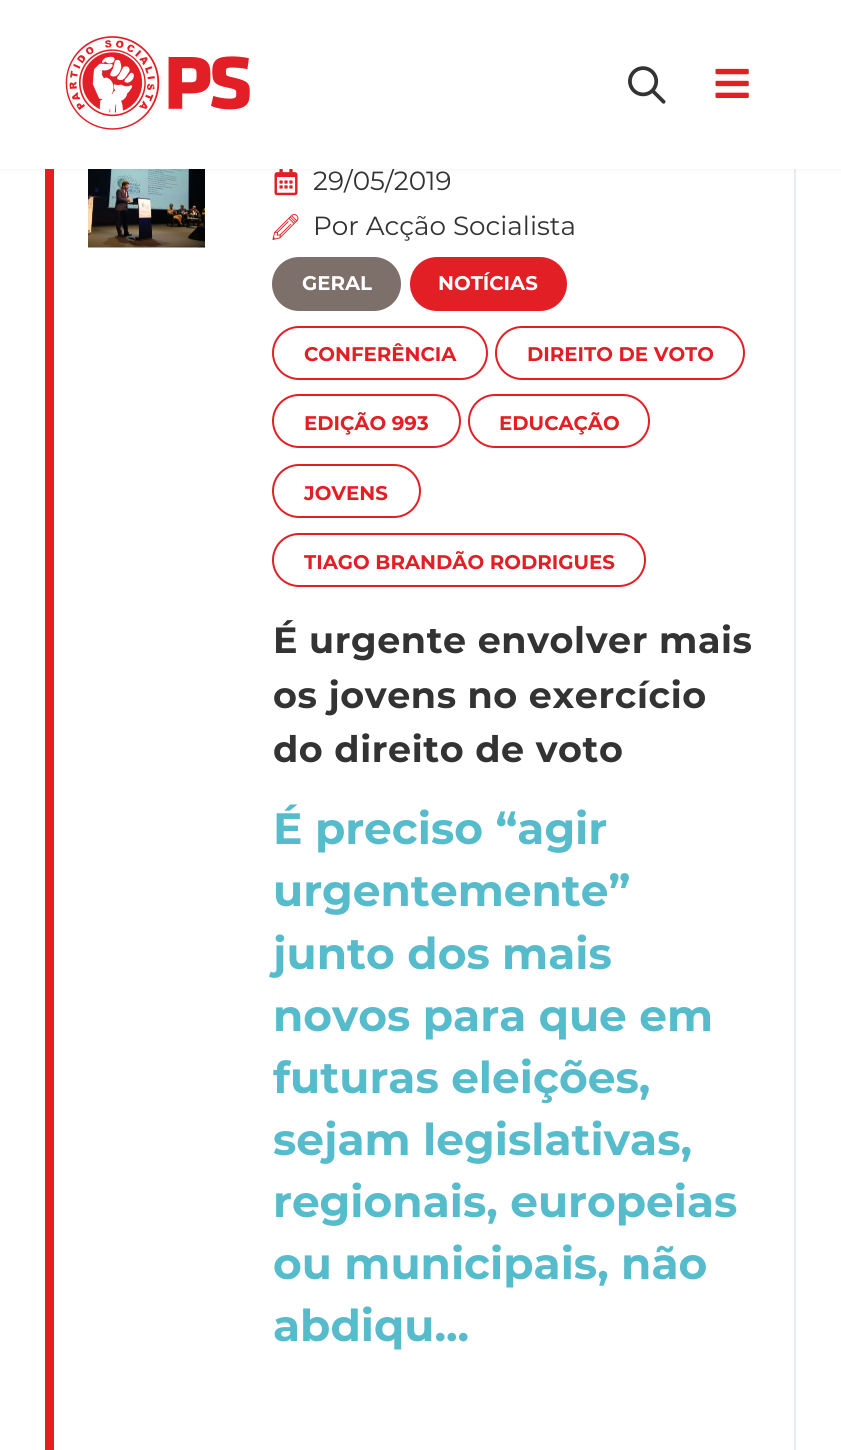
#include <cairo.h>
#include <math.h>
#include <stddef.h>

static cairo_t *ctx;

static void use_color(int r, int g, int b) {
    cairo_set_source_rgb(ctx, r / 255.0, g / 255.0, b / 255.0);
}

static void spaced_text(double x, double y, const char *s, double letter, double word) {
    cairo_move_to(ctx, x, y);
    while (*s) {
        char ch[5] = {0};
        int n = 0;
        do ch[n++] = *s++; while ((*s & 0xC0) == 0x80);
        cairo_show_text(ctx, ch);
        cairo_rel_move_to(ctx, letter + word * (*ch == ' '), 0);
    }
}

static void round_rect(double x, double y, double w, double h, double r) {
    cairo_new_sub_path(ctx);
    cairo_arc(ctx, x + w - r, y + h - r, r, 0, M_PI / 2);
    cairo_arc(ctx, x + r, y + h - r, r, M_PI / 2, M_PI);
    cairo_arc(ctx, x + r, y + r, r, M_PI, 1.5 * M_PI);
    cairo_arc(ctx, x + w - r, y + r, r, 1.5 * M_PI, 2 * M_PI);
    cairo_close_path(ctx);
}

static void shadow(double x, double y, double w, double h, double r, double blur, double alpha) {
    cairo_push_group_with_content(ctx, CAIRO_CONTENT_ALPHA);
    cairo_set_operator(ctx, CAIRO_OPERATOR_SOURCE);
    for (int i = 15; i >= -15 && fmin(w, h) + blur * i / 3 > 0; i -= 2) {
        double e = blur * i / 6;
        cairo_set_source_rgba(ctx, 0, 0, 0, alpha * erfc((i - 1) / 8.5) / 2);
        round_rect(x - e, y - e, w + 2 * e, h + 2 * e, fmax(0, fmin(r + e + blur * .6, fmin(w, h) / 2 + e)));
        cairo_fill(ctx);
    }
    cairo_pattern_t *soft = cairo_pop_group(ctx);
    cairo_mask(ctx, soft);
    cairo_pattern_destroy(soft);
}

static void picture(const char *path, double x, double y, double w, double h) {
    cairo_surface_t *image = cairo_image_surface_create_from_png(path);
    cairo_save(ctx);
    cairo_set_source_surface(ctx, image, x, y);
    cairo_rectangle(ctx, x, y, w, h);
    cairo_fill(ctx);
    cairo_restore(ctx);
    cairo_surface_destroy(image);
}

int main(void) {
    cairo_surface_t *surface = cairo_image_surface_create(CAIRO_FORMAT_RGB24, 841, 1450);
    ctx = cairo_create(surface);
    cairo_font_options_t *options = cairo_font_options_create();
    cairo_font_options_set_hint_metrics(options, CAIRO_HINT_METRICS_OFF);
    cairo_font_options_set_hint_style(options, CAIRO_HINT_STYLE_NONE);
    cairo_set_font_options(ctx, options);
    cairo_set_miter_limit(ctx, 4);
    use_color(255, 255, 255);
    cairo_paint(ctx);
    use_color(233, 236, 239);
    cairo_rectangle(ctx, 794, 169, 2, 1281);
    cairo_fill(ctx);
    use_color(227, 31, 38);
    cairo_new_path(ctx);
    cairo_move_to(ctx, 45, 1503);
    cairo_line_to(ctx, 45, 124);
    cairo_line_to(ctx, 54, 126);
    cairo_line_to(ctx, 54, 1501);
    cairo_close_path(ctx);
    cairo_fill(ctx);
    picture("img4.png", 88, 169, 117, 79);
    picture("img5.png", 274, 169, 24, 27);
    use_color(0, 0, 0);
    shadow(0, 0, 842, 169, 0, 3.5, 0.06);
    cairo_select_font_face(ctx, "Montserrat", CAIRO_FONT_SLANT_NORMAL, CAIRO_FONT_WEIGHT_NORMAL);
    cairo_set_font_size(ctx, 26.25);
    use_color(51, 51, 51);
    cairo_move_to(ctx, 313, 190);
    cairo_show_text(ctx, "29/05/2019");
    use_color(255, 255, 255);
    cairo_rectangle(ctx, 0, 0, 841, 169);
    cairo_fill(ctx);
    picture("img1.png", 65, 36, 185, 94);
    picture("img2.png", 628, 66, 38, 38);
    picture("img3.png", 715, 68, 34, 30);
    picture("img6.png", 272, 214, 27, 26);
    use_color(51, 51, 51);
    cairo_move_to(ctx, 313, 235);
    cairo_show_text(ctx, "Por Acção Socialista");
    use_color(125, 111, 105);
    round_rect(272, 257, 129, 54, 27);
    cairo_fill(ctx);
    cairo_select_font_face(ctx, "Montserrat", CAIRO_FONT_SLANT_NORMAL, CAIRO_FONT_WEIGHT_BOLD);
    cairo_set_font_size(ctx, 19.75);
    use_color(255, 255, 255);
    cairo_move_to(ctx, 302, 290);
    cairo_show_text(ctx, "GERAL");
    use_color(227, 31, 38);
    round_rect(410, 257, 157, 54, 27);
    cairo_fill(ctx);
    use_color(255, 255, 255);
    cairo_move_to(ctx, 438, 290);
    cairo_show_text(ctx, "NOTÍCIAS");
    round_rect(273, 327, 214, 52, 26);
    use_color(227, 31, 38);
    cairo_stroke(ctx);
    cairo_move_to(ctx, 304, 361);
    cairo_show_text(ctx, "CONFERÊNCIA");
    round_rect(496, 327, 248, 52, 26);
    cairo_stroke(ctx);
    cairo_move_to(ctx, 527, 361);
    cairo_show_text(ctx, "DIREITO DE VOTO");
    round_rect(273, 395, 187, 52, 26);
    cairo_stroke(ctx);
    cairo_move_to(ctx, 304, 430);
    cairo_show_text(ctx, "EDIÇÃO 993");
    round_rect(469, 395, 180, 52, 26);
    cairo_stroke(ctx);
    cairo_move_to(ctx, 499, 430);
    cairo_show_text(ctx, "EDUCAÇÃO");
    round_rect(273, 465, 147, 52, 26);
    cairo_stroke(ctx);
    cairo_move_to(ctx, 304, 500);
    cairo_show_text(ctx, "JOVENS");
    round_rect(273, 534, 372, 52, 26);
    cairo_stroke(ctx);
    cairo_move_to(ctx, 304, 569);
    cairo_show_text(ctx, "TIAGO BRANDÃO RODRIGUES");
    cairo_set_font_size(ctx, 36.5);
    use_color(51, 51, 51);
    spaced_text(273, 653, "É urgente envolver mais", 0.6, 0);
    spaced_text(273, 708, "os jovens no exercício", 0.6, 0);
    spaced_text(273, 762, "do direito de voto", 0.6, 0);
    cairo_set_font_size(ctx, 43.9);
    use_color(86, 188, 204);
    cairo_move_to(ctx, 273, 844);
    cairo_show_text(ctx, "É preciso “agir");
    cairo_move_to(ctx, 273, 906);
    cairo_show_text(ctx, "urgentemente”");
    cairo_move_to(ctx, 273, 969);
    cairo_show_text(ctx, "junto dos mais");
    cairo_move_to(ctx, 273, 1031);
    cairo_show_text(ctx, "novos para que em");
    cairo_move_to(ctx, 273, 1093);
    cairo_show_text(ctx, "futuras eleições,");
    cairo_move_to(ctx, 273, 1155);
    cairo_show_text(ctx, "sejam legislativas,");
    cairo_move_to(ctx, 273, 1217);
    cairo_show_text(ctx, "regionais, europeias");
    cairo_move_to(ctx, 273, 1279);
    cairo_show_text(ctx, "ou municipais, não");
    cairo_move_to(ctx, 273, 1341);
    cairo_show_text(ctx, "abdiqu...");
    cairo_surface_write_to_png(surface, "result.png");
    cairo_font_options_destroy(options);
    cairo_destroy(ctx);
    cairo_surface_destroy(surface);
    return 0;
}
